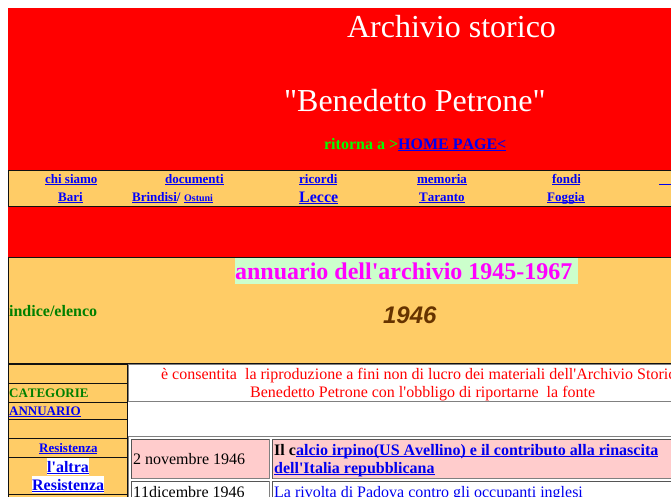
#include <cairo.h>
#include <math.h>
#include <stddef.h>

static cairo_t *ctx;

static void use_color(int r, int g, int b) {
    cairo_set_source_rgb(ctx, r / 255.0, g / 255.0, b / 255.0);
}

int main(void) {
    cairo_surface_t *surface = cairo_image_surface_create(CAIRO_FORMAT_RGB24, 671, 497);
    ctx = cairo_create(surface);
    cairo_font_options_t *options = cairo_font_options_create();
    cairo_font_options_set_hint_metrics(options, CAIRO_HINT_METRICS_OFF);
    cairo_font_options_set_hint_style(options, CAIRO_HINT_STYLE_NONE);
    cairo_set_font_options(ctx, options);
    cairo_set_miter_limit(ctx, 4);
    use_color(255, 255, 255);
    cairo_paint(ctx);
    use_color(255, 0, 0);
    cairo_rectangle(ctx, 8, 8, 663, 249);
    cairo_fill(ctx);
    cairo_select_font_face(ctx, "Liberation Serif", CAIRO_FONT_SLANT_NORMAL, CAIRO_FONT_WEIGHT_NORMAL);
    cairo_set_font_size(ctx, 32);
    use_color(255, 255, 255);
    cairo_move_to(ctx, 347, 37);
    cairo_show_text(ctx, "Archivio storico");
    cairo_move_to(ctx, 284, 111);
    cairo_show_text(ctx, "\"Benedetto Petrone\"");
    cairo_select_font_face(ctx, "Liberation Serif", CAIRO_FONT_SLANT_NORMAL, CAIRO_FONT_WEIGHT_BOLD);
    cairo_set_font_size(ctx, 16);
    use_color(0, 255, 0);
    cairo_move_to(ctx, 324, 149);
    cairo_show_text(ctx, "ritorna a >");
    use_color(0, 0, 238);
    cairo_move_to(ctx, 398, 149);
    cairo_show_text(ctx, "HOME PAGE<");
    cairo_rectangle(ctx, 398, 150, 108, 1);
    cairo_fill(ctx);
    use_color(255, 204, 102);
    cairo_rectangle(ctx, 9, 171, 662, 35);
    cairo_fill(ctx);
    use_color(17, 17, 17);
    cairo_rectangle(ctx, 8, 170, 663, 1);
    cairo_fill(ctx);
    cairo_rectangle(ctx, 8, 206, 663, 1);
    cairo_fill(ctx);
    cairo_rectangle(ctx, 8, 170, 1, 37);
    cairo_fill(ctx);
    cairo_set_font_size(ctx, 13);
    use_color(0, 0, 255);
    cairo_move_to(ctx, 45, 183);
    cairo_show_text(ctx, "chi siamo");
    use_color(0, 0, 238);
    cairo_rectangle(ctx, 45, 184, 52, 1);
    cairo_fill(ctx);
    use_color(0, 0, 255);
    cairo_move_to(ctx, 165, 183);
    cairo_show_text(ctx, "documenti");
    use_color(0, 0, 238);
    cairo_rectangle(ctx, 165, 184, 59, 1);
    cairo_fill(ctx);
    use_color(0, 0, 255);
    cairo_move_to(ctx, 299, 183);
    cairo_show_text(ctx, "ricordi");
    use_color(0, 0, 238);
    cairo_rectangle(ctx, 299, 184, 38, 1);
    cairo_fill(ctx);
    use_color(0, 0, 255);
    cairo_move_to(ctx, 417, 183);
    cairo_show_text(ctx, "memoria");
    use_color(0, 0, 238);
    cairo_rectangle(ctx, 417, 184, 50, 1);
    cairo_fill(ctx);
    cairo_move_to(ctx, 552, 183);
    cairo_show_text(ctx, "fondi");
    cairo_rectangle(ctx, 552, 184, 28, 1);
    cairo_fill(ctx);
    cairo_rectangle(ctx, 659, 184, 12, 1);
    cairo_fill(ctx);
    use_color(0, 0, 255);
    cairo_move_to(ctx, 58, 201);
    cairo_show_text(ctx, "Bari");
    use_color(0, 0, 238);
    cairo_rectangle(ctx, 58, 202, 25, 1);
    cairo_fill(ctx);
    use_color(0, 0, 255);
    cairo_move_to(ctx, 132, 201);
    cairo_show_text(ctx, "Brindisi/");
    use_color(0, 0, 238);
    cairo_rectangle(ctx, 132, 202, 45, 1);
    cairo_fill(ctx);
    cairo_set_font_size(ctx, 10);
    use_color(0, 0, 255);
    cairo_move_to(ctx, 184, 201);
    cairo_show_text(ctx, "Ostuni");
    use_color(0, 0, 238);
    cairo_rectangle(ctx, 184, 202, 29, 1);
    cairo_fill(ctx);
    cairo_set_font_size(ctx, 16);
    use_color(0, 0, 255);
    cairo_move_to(ctx, 299, 202);
    cairo_show_text(ctx, "Lecce");
    use_color(0, 0, 238);
    cairo_rectangle(ctx, 299, 203, 39, 1);
    cairo_fill(ctx);
    cairo_set_font_size(ctx, 13);
    use_color(0, 0, 255);
    cairo_move_to(ctx, 419, 201);
    cairo_show_text(ctx, "Taranto");
    use_color(0, 0, 238);
    cairo_rectangle(ctx, 419, 202, 46, 1);
    cairo_fill(ctx);
    cairo_rectangle(ctx, 547, 202, 38, 1);
    cairo_fill(ctx);
    use_color(0, 0, 255);
    cairo_move_to(ctx, 547, 201);
    cairo_show_text(ctx, "Foggia");
    use_color(17, 17, 17);
    cairo_rectangle(ctx, 8, 257, 663, 1);
    cairo_fill(ctx);
    cairo_rectangle(ctx, 8, 363, 663, 1);
    cairo_fill(ctx);
    cairo_rectangle(ctx, 8, 257, 1, 107);
    cairo_fill(ctx);
    use_color(255, 204, 102);
    cairo_rectangle(ctx, 9, 258, 662, 105);
    cairo_fill(ctx);
    cairo_set_font_size(ctx, 16);
    use_color(0, 128, 0);
    cairo_move_to(ctx, 9, 316);
    cairo_show_text(ctx, "indice/elenco");
    use_color(204, 255, 204);
    cairo_rectangle(ctx, 235, 258, 343, 26);
    cairo_fill(ctx);
    cairo_set_font_size(ctx, 24);
    use_color(255, 0, 255);
    cairo_move_to(ctx, 235, 279);
    cairo_show_text(ctx, "annuario dell'archivio 1945-1967");
    cairo_select_font_face(ctx, "Liberation Sans", CAIRO_FONT_SLANT_ITALIC, CAIRO_FONT_WEIGHT_BOLD);
    use_color(102, 51, 0);
    cairo_move_to(ctx, 383, 323);
    cairo_show_text(ctx, "1946");
    use_color(255, 204, 102);
    cairo_rectangle(ctx, 9, 365, 118, 132);
    cairo_fill(ctx);
    use_color(17, 17, 17);
    cairo_rectangle(ctx, 8, 364, 120, 1);
    cairo_fill(ctx);
    cairo_rectangle(ctx, 127, 364, 1, 133);
    cairo_fill(ctx);
    cairo_rectangle(ctx, 8, 364, 1, 133);
    cairo_fill(ctx);
    cairo_rectangle(ctx, 8, 383, 120, 1);
    cairo_fill(ctx);
    cairo_select_font_face(ctx, "Liberation Serif", CAIRO_FONT_SLANT_NORMAL, CAIRO_FONT_WEIGHT_BOLD);
    cairo_set_font_size(ctx, 13);
    use_color(0, 128, 0);
    cairo_move_to(ctx, 9, 397);
    cairo_show_text(ctx, "CATEGORIE");
    use_color(17, 17, 17);
    cairo_rectangle(ctx, 8, 402, 120, 1);
    cairo_fill(ctx);
    use_color(0, 0, 238);
    cairo_move_to(ctx, 9, 415);
    cairo_show_text(ctx, "ANNUARIO");
    cairo_rectangle(ctx, 9, 416, 72, 1);
    cairo_fill(ctx);
    use_color(17, 17, 17);
    cairo_rectangle(ctx, 8, 419, 120, 1);
    cairo_fill(ctx);
    cairo_rectangle(ctx, 8, 438, 120, 1);
    cairo_fill(ctx);
    use_color(0, 0, 255);
    cairo_move_to(ctx, 39, 452);
    cairo_show_text(ctx, "Resistenza");
    use_color(0, 0, 238);
    cairo_rectangle(ctx, 39, 453, 58, 1);
    cairo_fill(ctx);
    use_color(17, 17, 17);
    cairo_rectangle(ctx, 8, 457, 120, 1);
    cairo_fill(ctx);
    use_color(255, 255, 255);
    cairo_rectangle(ctx, 47, 458, 42, 17);
    cairo_fill(ctx);
    cairo_set_font_size(ctx, 16);
    use_color(0, 0, 238);
    cairo_move_to(ctx, 47, 472);
    cairo_show_text(ctx, "l'altra");
    cairo_rectangle(ctx, 47, 473, 42, 1);
    cairo_fill(ctx);
    use_color(255, 255, 255);
    cairo_rectangle(ctx, 32, 476, 72, 17);
    cairo_fill(ctx);
    use_color(0, 0, 238);
    cairo_move_to(ctx, 32, 490);
    cairo_show_text(ctx, "Resistenza");
    cairo_rectangle(ctx, 32, 491, 72, 1);
    cairo_fill(ctx);
    use_color(17, 17, 17);
    cairo_rectangle(ctx, 8, 494, 120, 1);
    cairo_fill(ctx);
    use_color(128, 128, 128);
    cairo_rectangle(ctx, 128, 364, 543, 1);
    cairo_fill(ctx);
    cairo_rectangle(ctx, 128, 401, 543, 1);
    cairo_fill(ctx);
    cairo_rectangle(ctx, 128, 364, 1, 38);
    cairo_fill(ctx);
    cairo_select_font_face(ctx, "Liberation Serif", CAIRO_FONT_SLANT_NORMAL, CAIRO_FONT_WEIGHT_NORMAL);
    use_color(255, 0, 0);
    cairo_move_to(ctx, 161, 379);
    cairo_show_text(ctx, "è consentita  la riproduzione a fini non di lucro dei materiali dell'Archivio Storic");
    cairo_move_to(ctx, 250, 397);
    cairo_show_text(ctx, "Benedetto Petrone con l'obbligo di riportarne  la fonte");
    use_color(128, 128, 128);
    cairo_rectangle(ctx, 128, 436, 543, 1);
    cairo_fill(ctx);
    cairo_rectangle(ctx, 128, 436, 1, 61);
    cairo_fill(ctx);
    use_color(255, 204, 204);
    cairo_rectangle(ctx, 132, 440, 137, 38);
    cairo_fill(ctx);
    use_color(85, 85, 85);
    cairo_rectangle(ctx, 131, 439, 139, 1);
    cairo_fill(ctx);
    use_color(128, 128, 128);
    cairo_rectangle(ctx, 269, 439, 1, 40);
    cairo_fill(ctx);
    cairo_rectangle(ctx, 131, 478, 139, 1);
    cairo_fill(ctx);
    use_color(85, 85, 85);
    cairo_rectangle(ctx, 131, 439, 1, 40);
    cairo_fill(ctx);
    use_color(0, 0, 0);
    cairo_move_to(ctx, 133, 464);
    cairo_show_text(ctx, "2 novembre 1946");
    use_color(255, 204, 204);
    cairo_rectangle(ctx, 273, 440, 398, 38);
    cairo_fill(ctx);
    use_color(85, 85, 85);
    cairo_rectangle(ctx, 272, 439, 399, 1);
    cairo_fill(ctx);
    use_color(128, 128, 128);
    cairo_rectangle(ctx, 272, 478, 399, 1);
    cairo_fill(ctx);
    use_color(85, 85, 85);
    cairo_rectangle(ctx, 272, 439, 1, 40);
    cairo_fill(ctx);
    cairo_select_font_face(ctx, "Liberation Serif", CAIRO_FONT_SLANT_NORMAL, CAIRO_FONT_WEIGHT_BOLD);
    use_color(0, 0, 0);
    cairo_move_to(ctx, 274, 455);
    cairo_show_text(ctx, "Il c");
    use_color(0, 0, 238);
    cairo_rectangle(ctx, 296, 456, 362, 1);
    cairo_fill(ctx);
    cairo_move_to(ctx, 296, 455);
    cairo_show_text(ctx, "alcio irpino(US Avellino) e il contributo alla rinascita");
    cairo_rectangle(ctx, 274, 474, 161, 1);
    cairo_fill(ctx);
    cairo_move_to(ctx, 274, 473);
    cairo_show_text(ctx, "dell'Italia repubblicana");
    use_color(85, 85, 85);
    cairo_rectangle(ctx, 131, 481, 139, 1);
    cairo_fill(ctx);
    use_color(128, 128, 128);
    cairo_rectangle(ctx, 269, 481, 1, 16);
    cairo_fill(ctx);
    use_color(85, 85, 85);
    cairo_rectangle(ctx, 131, 481, 1, 16);
    cairo_fill(ctx);
    cairo_select_font_face(ctx, "Liberation Serif", CAIRO_FONT_SLANT_NORMAL, CAIRO_FONT_WEIGHT_NORMAL);
    use_color(0, 0, 0);
    cairo_move_to(ctx, 133, 497);
    cairo_show_text(ctx, "11dicembre 1946");
    use_color(85, 85, 85);
    cairo_rectangle(ctx, 272, 481, 399, 1);
    cairo_fill(ctx);
    cairo_rectangle(ctx, 272, 481, 1, 16);
    cairo_fill(ctx);
    use_color(0, 0, 238);
    cairo_move_to(ctx, 274, 497);
    cairo_show_text(ctx, "La rivolta di Padova contro gli occupanti inglesi");
    cairo_surface_write_to_png(surface, "result.png");
    cairo_font_options_destroy(options);
    cairo_destroy(ctx);
    cairo_surface_destroy(surface);
    return 0;
}
